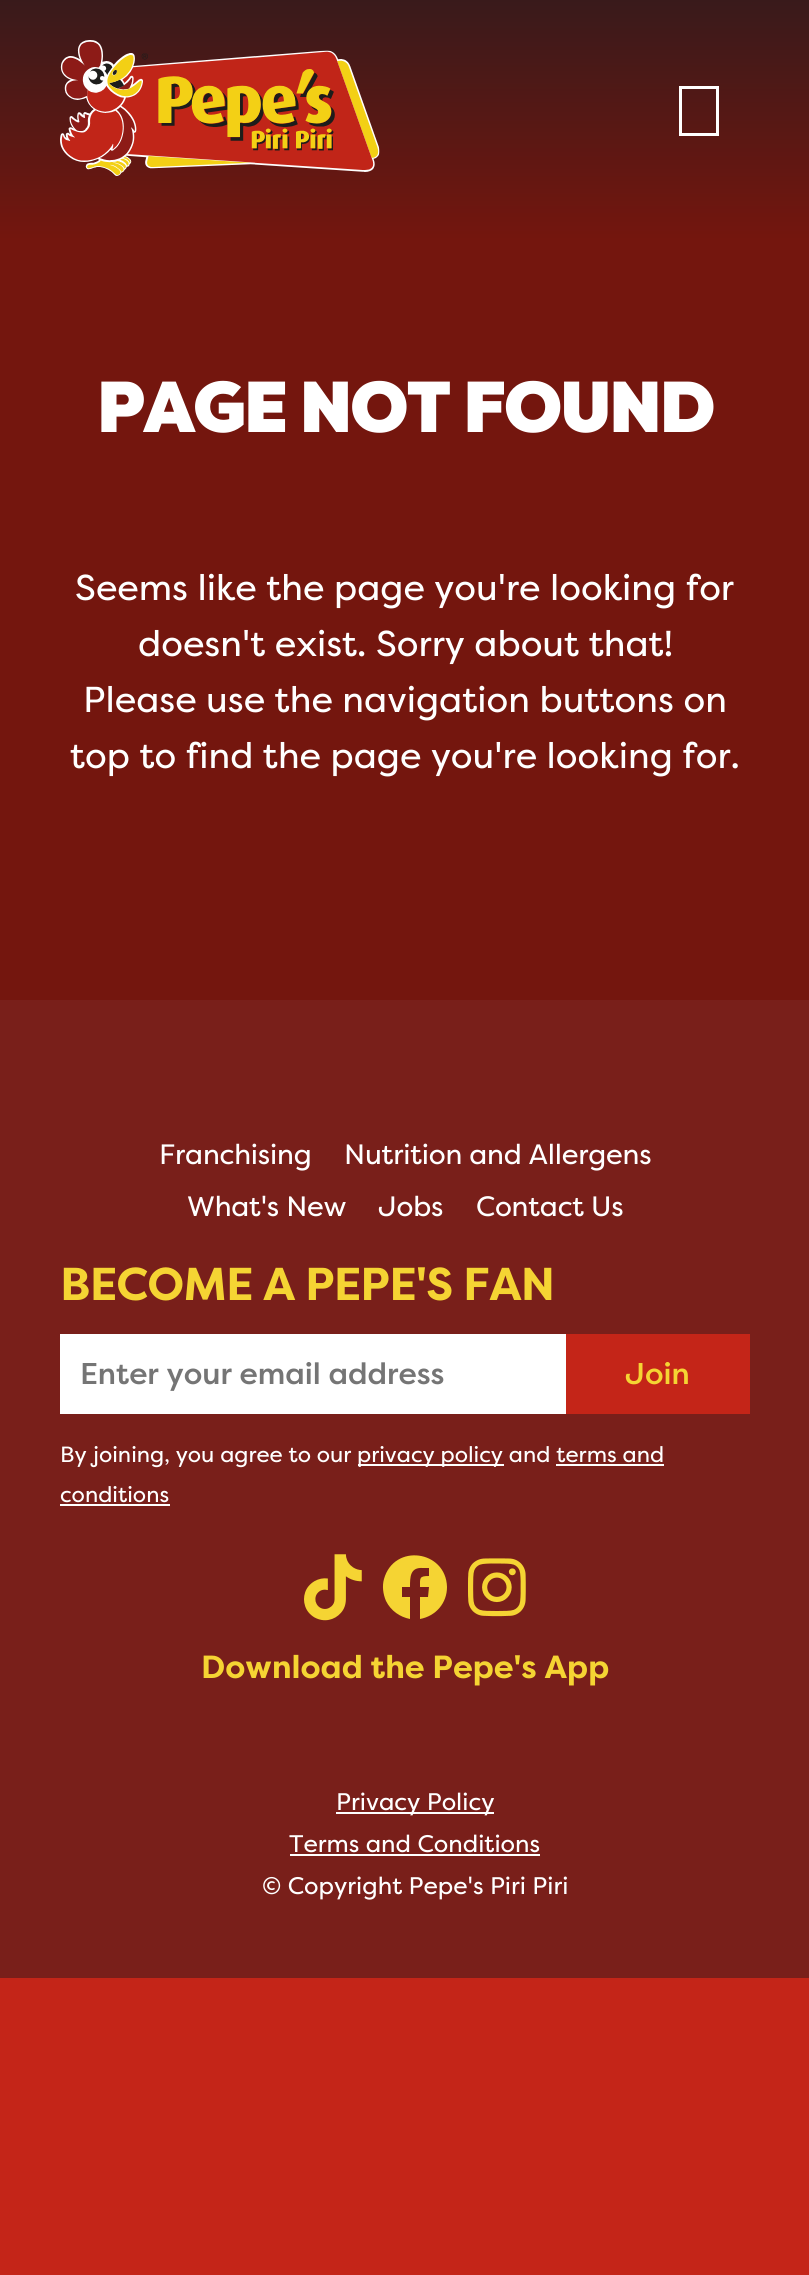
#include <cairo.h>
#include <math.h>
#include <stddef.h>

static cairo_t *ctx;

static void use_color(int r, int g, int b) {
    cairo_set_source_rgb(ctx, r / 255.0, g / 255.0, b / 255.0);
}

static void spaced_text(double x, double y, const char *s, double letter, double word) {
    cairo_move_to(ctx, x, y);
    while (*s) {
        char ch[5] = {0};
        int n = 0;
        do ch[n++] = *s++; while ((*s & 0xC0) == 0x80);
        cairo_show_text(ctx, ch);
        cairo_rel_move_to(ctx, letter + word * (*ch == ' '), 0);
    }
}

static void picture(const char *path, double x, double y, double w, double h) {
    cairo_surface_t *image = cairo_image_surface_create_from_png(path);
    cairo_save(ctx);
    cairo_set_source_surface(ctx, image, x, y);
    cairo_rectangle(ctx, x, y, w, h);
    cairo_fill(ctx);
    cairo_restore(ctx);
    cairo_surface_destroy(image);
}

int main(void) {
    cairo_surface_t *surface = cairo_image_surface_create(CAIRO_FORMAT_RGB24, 809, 2275);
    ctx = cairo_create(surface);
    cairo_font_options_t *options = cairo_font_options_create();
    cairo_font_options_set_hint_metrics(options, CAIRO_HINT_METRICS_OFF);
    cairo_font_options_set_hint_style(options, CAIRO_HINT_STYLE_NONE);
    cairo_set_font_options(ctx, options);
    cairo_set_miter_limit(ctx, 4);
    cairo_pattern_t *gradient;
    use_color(196, 37, 24);
    cairo_paint(ctx);
    gradient = cairo_pattern_create_linear(405, 0, 405, 240);
    cairo_pattern_add_color_stop_rgba(gradient, 0, 0.224, 0.102, 0.106, 1);
    cairo_pattern_add_color_stop_rgba(gradient, 1, 0.455, 0.086, 0.055, 1);
    cairo_set_source(ctx, gradient);
    cairo_pattern_destroy(gradient);
    cairo_rectangle(ctx, 0, 0, 809, 240);
    cairo_fill(ctx);
    picture("img1.png", 60, 40, 320, 136);
    use_color(255, 255, 255);
    cairo_new_path(ctx);
    cairo_move_to(ctx, 679, 86);
    cairo_line_to(ctx, 719, 86);
    cairo_line_to(ctx, 719, 136);
    cairo_line_to(ctx, 679, 136);
    cairo_close_path(ctx);
    cairo_move_to(ctx, 682, 89);
    cairo_line_to(ctx, 682, 133);
    cairo_line_to(ctx, 716, 133);
    cairo_line_to(ctx, 716, 89);
    cairo_close_path(ctx);
    cairo_fill(ctx);
    use_color(116, 22, 14);
    cairo_rectangle(ctx, 0, 240, 809, 760);
    cairo_fill(ctx);
    cairo_select_font_face(ctx, "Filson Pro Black", CAIRO_FONT_SLANT_NORMAL, CAIRO_FONT_WEIGHT_NORMAL);
    cairo_set_font_size(ctx, 72);
    use_color(255, 255, 255);
    spaced_text(97, 432, "PAGE NOT FOUND", -2, 0);
    cairo_select_font_face(ctx, "Filson Pro", CAIRO_FONT_SLANT_NORMAL, CAIRO_FONT_WEIGHT_NORMAL);
    cairo_set_font_size(ctx, 36);
    cairo_move_to(ctx, 75, 600);
    cairo_show_text(ctx, "Seems like the page you're looking for");
    cairo_move_to(ctx, 138, 656);
    cairo_show_text(ctx, "doesn't exist. Sorry about that!");
    cairo_move_to(ctx, 83, 712);
    cairo_show_text(ctx, "Please use the navigation buttons on");
    cairo_move_to(ctx, 70, 768);
    cairo_show_text(ctx, "top to find the page you're looking for.");
    use_color(121, 31, 26);
    cairo_rectangle(ctx, 0, 1000, 809, 978);
    cairo_fill(ctx);
    cairo_set_font_size(ctx, 28);
    use_color(255, 255, 255);
    spaced_text(159, 1164, "Franchising", -0.2, 0);
    spaced_text(344, 1164, "Nutrition and Allergens", -0.2, 0);
    spaced_text(187, 1216, "What's New", -0.2, 0);
    spaced_text(378, 1216, "Jobs", -0.2, 0);
    spaced_text(476, 1216, "Contact Us", -0.2, 0);
    cairo_select_font_face(ctx, "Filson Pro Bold", CAIRO_FONT_SLANT_NORMAL, CAIRO_FONT_WEIGHT_BOLD);
    cairo_set_font_size(ctx, 46);
    use_color(245, 212, 51);
    spaced_text(60, 1300, "BECOME A PEPE'S FAN", -0.8, 0);
    use_color(255, 255, 255);
    cairo_rectangle(ctx, 60, 1334, 506, 80);
    cairo_fill(ctx);
    cairo_select_font_face(ctx, "Filson Pro Medium", CAIRO_FONT_SLANT_NORMAL, CAIRO_FONT_WEIGHT_NORMAL);
    cairo_set_font_size(ctx, 30);
    use_color(117, 117, 117);
    cairo_move_to(ctx, 80, 1384);
    cairo_show_text(ctx, "Enter your email address");
    use_color(196, 37, 24);
    cairo_rectangle(ctx, 566, 1334, 184, 80);
    cairo_fill(ctx);
    use_color(245, 212, 51);
    cairo_move_to(ctx, 625, 1384);
    cairo_show_text(ctx, "Join");
    cairo_select_font_face(ctx, "Filson Pro", CAIRO_FONT_SLANT_NORMAL, CAIRO_FONT_WEIGHT_NORMAL);
    cairo_set_font_size(ctx, 22);
    use_color(255, 255, 255);
    cairo_move_to(ctx, 60, 1462);
    cairo_show_text(ctx, "By joining, you agree to our");
    cairo_rectangle(ctx, 358, 1464, 146, 2);
    cairo_fill(ctx);
    cairo_move_to(ctx, 357, 1462);
    cairo_show_text(ctx, "privacy policy and terms and");
    cairo_move_to(ctx, 60, 1502);
    cairo_show_text(ctx, "conditions");
    cairo_rectangle(ctx, 556, 1464, 108, 2);
    cairo_fill(ctx);
    cairo_rectangle(ctx, 60, 1504, 110, 2);
    cairo_fill(ctx);
    picture("img2.png", 304, 1554, 58, 67);
    use_color(245, 212, 51);
    cairo_new_path(ctx);
    cairo_move_to(ctx, 447, 1587);
    cairo_curve_to(ctx, 446, 1550, 394, 1543, 384, 1579);
    cairo_curve_to(ctx, 382, 1586, 383, 1594, 386, 1601);
    cairo_curve_to(ctx, 391, 1611, 400, 1617, 410, 1619);
    cairo_line_to(ctx, 410, 1597);
    cairo_line_to(ctx, 402, 1597);
    cairo_line_to(ctx, 402, 1587);
    cairo_line_to(ctx, 410, 1587);
    cairo_curve_to(ctx, 410, 1577, 410, 1567, 423, 1568);
    cairo_line_to(ctx, 429, 1568);
    cairo_line_to(ctx, 429, 1576);
    cairo_curve_to(ctx, 419, 1576, 420, 1578, 420, 1587);
    cairo_line_to(ctx, 429, 1587);
    cairo_line_to(ctx, 428, 1597);
    cairo_line_to(ctx, 420, 1597);
    cairo_line_to(ctx, 420, 1619);
    cairo_curve_to(ctx, 436, 1616, 447, 1603, 447, 1587);
    cairo_close_path(ctx);
    cairo_fill(ctx);
    picture("img3.png", 468, 1558, 58, 59);
    cairo_select_font_face(ctx, "Filson Pro Bold", CAIRO_FONT_SLANT_NORMAL, CAIRO_FONT_WEIGHT_BOLD);
    cairo_set_font_size(ctx, 32);
    cairo_move_to(ctx, 201, 1678);
    cairo_show_text(ctx, "Download the Pepe's App");
    use_color(255, 255, 255);
    cairo_rectangle(ctx, 336, 1812, 158, 2);
    cairo_fill(ctx);
    cairo_select_font_face(ctx, "Filson Pro", CAIRO_FONT_SLANT_NORMAL, CAIRO_FONT_WEIGHT_NORMAL);
    cairo_set_font_size(ctx, 24);
    cairo_move_to(ctx, 336, 1810);
    cairo_show_text(ctx, "Privacy Policy");
    cairo_move_to(ctx, 289, 1852);
    cairo_show_text(ctx, "Terms and Conditions");
    cairo_rectangle(ctx, 290, 1854, 250, 2);
    cairo_fill(ctx);
    cairo_move_to(ctx, 262, 1894);
    cairo_show_text(ctx, "© Copyright Pepe's Piri Piri");
    cairo_surface_write_to_png(surface, "result.png");
    cairo_font_options_destroy(options);
    cairo_destroy(ctx);
    cairo_surface_destroy(surface);
    return 0;
}
